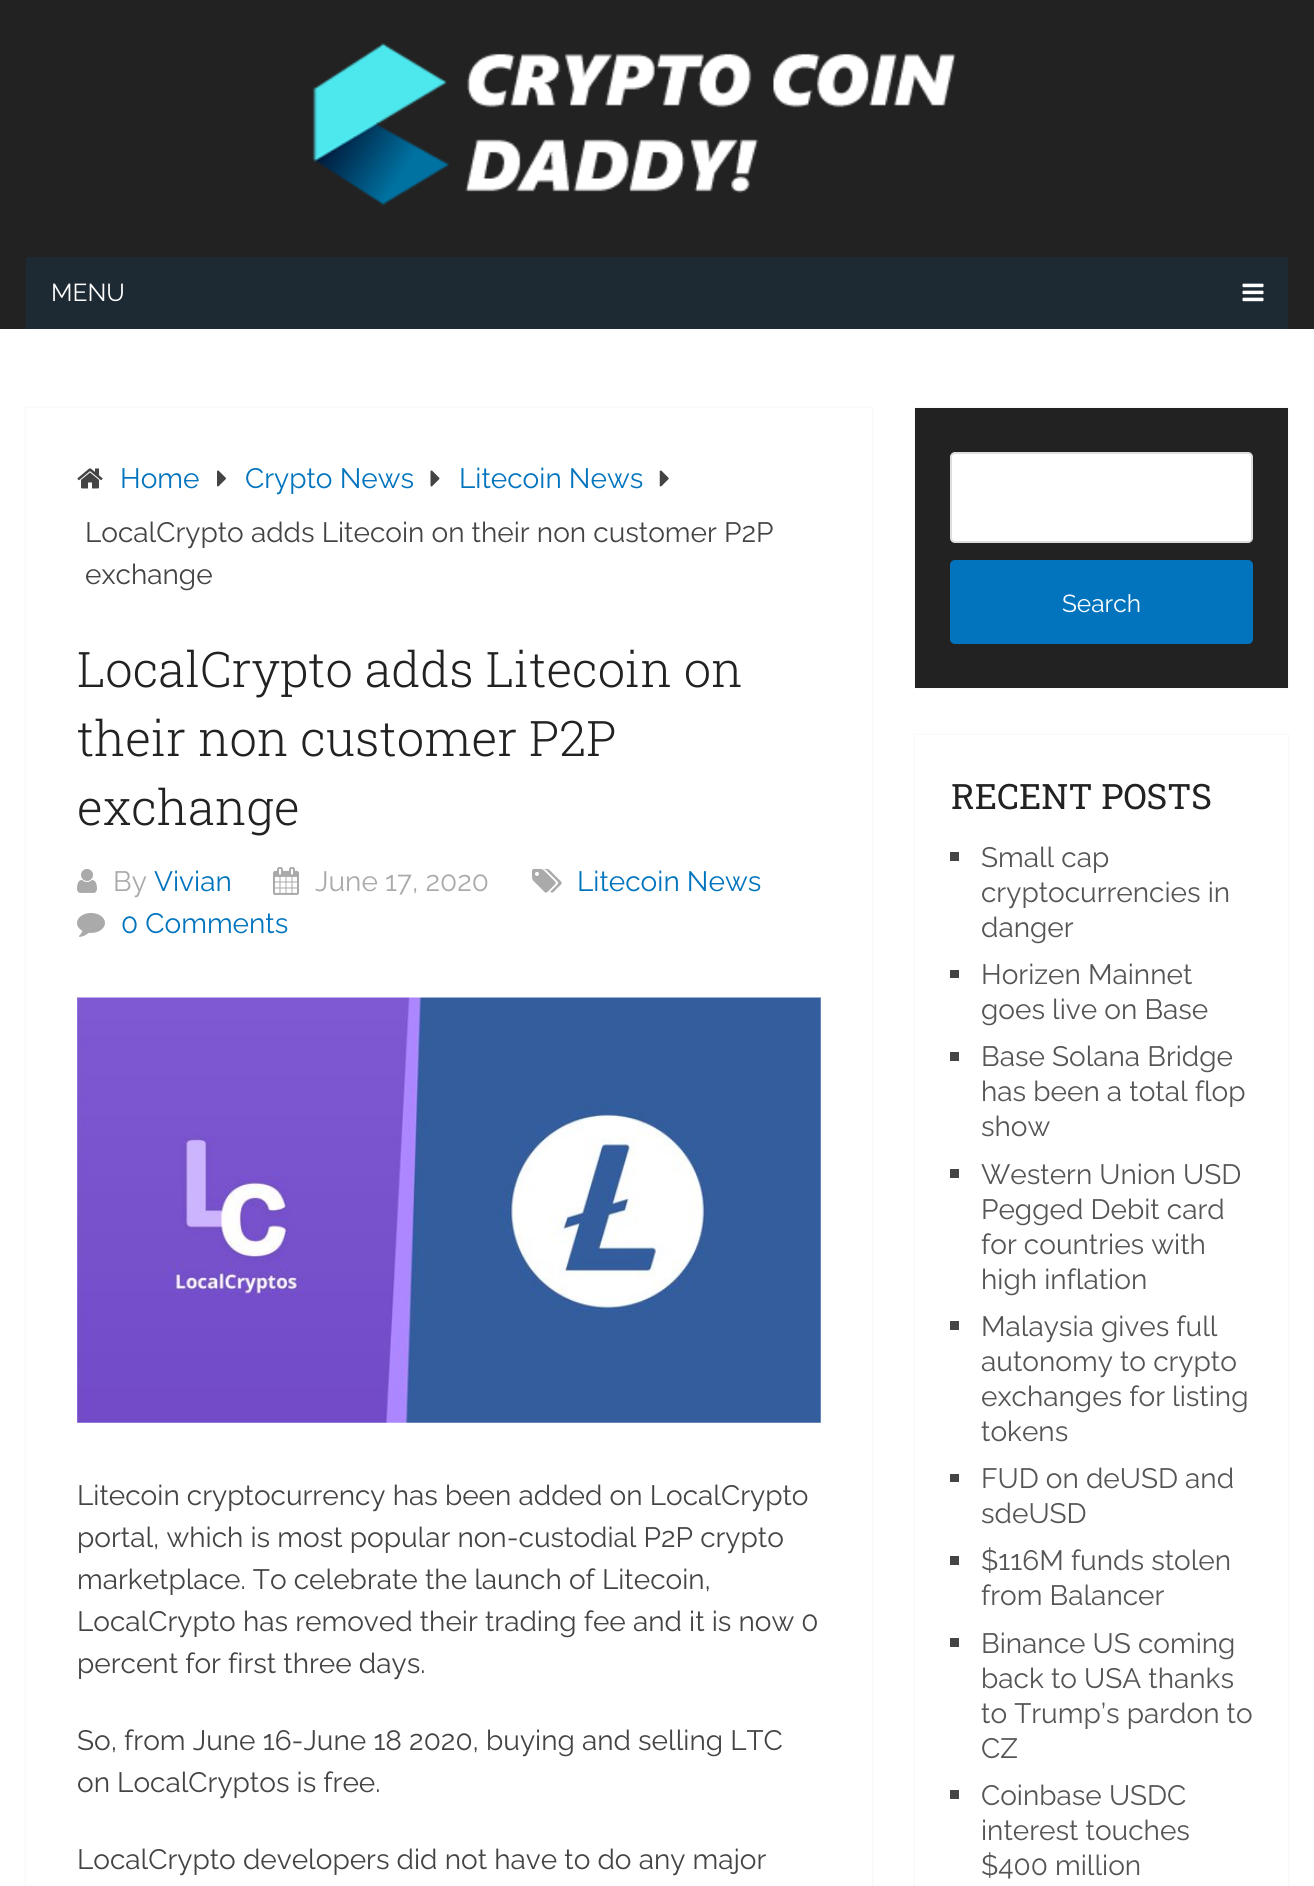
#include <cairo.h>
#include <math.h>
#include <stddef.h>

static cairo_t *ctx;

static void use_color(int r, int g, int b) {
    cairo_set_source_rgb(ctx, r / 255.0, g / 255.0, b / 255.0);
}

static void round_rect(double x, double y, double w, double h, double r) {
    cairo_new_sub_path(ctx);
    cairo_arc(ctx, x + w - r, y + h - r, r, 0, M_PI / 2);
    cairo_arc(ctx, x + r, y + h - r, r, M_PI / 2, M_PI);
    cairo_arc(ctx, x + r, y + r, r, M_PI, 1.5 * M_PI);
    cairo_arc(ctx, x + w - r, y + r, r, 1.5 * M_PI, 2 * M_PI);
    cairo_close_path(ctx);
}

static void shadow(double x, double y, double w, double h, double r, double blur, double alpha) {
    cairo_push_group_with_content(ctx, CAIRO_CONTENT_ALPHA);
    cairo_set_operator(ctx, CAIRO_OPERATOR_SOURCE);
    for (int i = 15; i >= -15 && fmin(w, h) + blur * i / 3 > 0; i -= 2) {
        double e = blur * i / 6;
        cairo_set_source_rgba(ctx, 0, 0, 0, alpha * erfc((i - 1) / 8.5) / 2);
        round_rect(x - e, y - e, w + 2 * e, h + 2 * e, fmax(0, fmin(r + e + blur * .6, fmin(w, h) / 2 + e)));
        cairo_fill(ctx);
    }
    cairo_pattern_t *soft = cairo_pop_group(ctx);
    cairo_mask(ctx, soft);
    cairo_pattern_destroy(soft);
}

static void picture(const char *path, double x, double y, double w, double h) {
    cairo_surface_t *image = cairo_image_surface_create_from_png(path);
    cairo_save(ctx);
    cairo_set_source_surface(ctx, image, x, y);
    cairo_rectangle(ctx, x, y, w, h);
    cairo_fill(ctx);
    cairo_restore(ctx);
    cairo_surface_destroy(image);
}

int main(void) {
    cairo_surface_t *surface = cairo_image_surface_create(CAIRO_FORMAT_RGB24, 1314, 1886);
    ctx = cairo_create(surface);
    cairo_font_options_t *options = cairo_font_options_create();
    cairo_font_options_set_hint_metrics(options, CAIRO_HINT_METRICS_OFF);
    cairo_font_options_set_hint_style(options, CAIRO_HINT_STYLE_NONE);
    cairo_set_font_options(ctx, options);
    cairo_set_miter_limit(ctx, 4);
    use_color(255, 255, 255);
    cairo_paint(ctx);
    use_color(34, 34, 34);
    cairo_rectangle(ctx, 0, 0, 1314, 329);
    cairo_fill(ctx);
    picture("img1.png", 312, 43, 644, 163);
    use_color(29, 41, 51);
    cairo_rectangle(ctx, 26, 257, 1262, 72);
    cairo_fill(ctx);
    cairo_select_font_face(ctx, "Raleway", CAIRO_FONT_SLANT_NORMAL, CAIRO_FONT_WEIGHT_NORMAL);
    cairo_set_font_size(ctx, 24.5);
    use_color(255, 255, 255);
    cairo_move_to(ctx, 51, 301);
    cairo_show_text(ctx, "MENU");
    picture("img2.png", 1242, 283, 22, 19);
    use_color(50, 50, 50);
    shadow(26, 408, 846, 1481, 0, 1, 0.1);
    use_color(255, 255, 255);
    cairo_rectangle(ctx, 26, 408, 846, 1478);
    cairo_fill(ctx);
    picture("img3.png", 77, 468, 26, 21);
    cairo_set_font_size(ctx, 28);
    use_color(2, 116, 190);
    cairo_move_to(ctx, 120, 488);
    cairo_show_text(ctx, "Home");
    picture("img4.png", 217, 470, 9, 17);
    cairo_move_to(ctx, 245, 488);
    cairo_show_text(ctx, "Crypto News");
    picture("img5.png", 430, 470, 10, 17);
    cairo_move_to(ctx, 459, 488);
    cairo_show_text(ctx, "Litecoin News");
    picture("img6.png", 659, 470, 10, 17);
    use_color(68, 68, 68);
    cairo_move_to(ctx, 85, 542);
    cairo_show_text(ctx, "LocalCrypto adds Litecoin on their non customer P2P");
    cairo_move_to(ctx, 85, 584);
    cairo_show_text(ctx, "exchange");
    cairo_select_font_face(ctx, "Roboto Slab Light", CAIRO_FONT_SLANT_NORMAL, CAIRO_FONT_WEIGHT_NORMAL);
    cairo_set_font_size(ctx, 49);
    use_color(34, 34, 34);
    cairo_move_to(ctx, 77, 687);
    cairo_show_text(ctx, "LocalCrypto adds Litecoin on");
    cairo_move_to(ctx, 77, 756);
    cairo_show_text(ctx, "their non customer P2P");
    cairo_move_to(ctx, 77, 825);
    cairo_show_text(ctx, "exchange");
    picture("img7.png", 77, 869, 20, 24);
    cairo_select_font_face(ctx, "Raleway", CAIRO_FONT_SLANT_NORMAL, CAIRO_FONT_WEIGHT_NORMAL);
    cairo_set_font_size(ctx, 28);
    use_color(170, 170, 170);
    cairo_move_to(ctx, 113, 891);
    cairo_show_text(ctx, "By");
    use_color(2, 116, 190);
    cairo_move_to(ctx, 154, 891);
    cairo_show_text(ctx, "Vivian");
    picture("img8.png", 273, 867, 26, 28);
    use_color(170, 170, 170);
    cairo_move_to(ctx, 315, 891);
    cairo_show_text(ctx, "June 17, 2020");
    picture("img9.png", 532, 868, 30, 25);
    use_color(2, 116, 190);
    cairo_move_to(ctx, 577, 891);
    cairo_show_text(ctx, "Litecoin News");
    picture("img10.png", 77, 913, 28, 24);
    cairo_move_to(ctx, 121, 933);
    cairo_show_text(ctx, "0 Comments");
    picture("img11.png", 77, 997, 744, 426);
    use_color(68, 68, 68);
    cairo_move_to(ctx, 77, 1505);
    cairo_show_text(ctx, "Litecoin cryptocurrency has been added on LocalCrypto");
    cairo_move_to(ctx, 77, 1547);
    cairo_show_text(ctx, "portal, which is most popular non-custodial P2P crypto");
    cairo_move_to(ctx, 77, 1589);
    cairo_show_text(ctx, "marketplace. To celebrate the launch of Litecoin,");
    cairo_move_to(ctx, 77, 1631);
    cairo_show_text(ctx, "LocalCrypto has removed their trading fee and it is now 0");
    cairo_move_to(ctx, 77, 1673);
    cairo_show_text(ctx, "percent for first three days.");
    cairo_move_to(ctx, 77, 1750);
    cairo_show_text(ctx, "So, from June 16-June 18 2020, buying and selling LTC");
    cairo_move_to(ctx, 77, 1792);
    cairo_show_text(ctx, "on LocalCryptos is free.");
    cairo_move_to(ctx, 77, 1869);
    cairo_show_text(ctx, "LocalCrypto developers did not have to do any major");
    use_color(50, 50, 50);
    shadow(915, 408, 373, 280, 0, 1, 0.1);
    use_color(34, 34, 34);
    cairo_rectangle(ctx, 915, 408, 373, 280);
    cairo_fill(ctx);
    use_color(255, 255, 255);
    round_rect(951, 453, 301, 89, 4);
    cairo_fill_preserve(ctx);
    use_color(221, 221, 221);
    cairo_stroke(ctx);
    use_color(2, 116, 190);
    round_rect(950, 560, 303, 84, 5);
    cairo_fill(ctx);
    cairo_set_font_size(ctx, 24.5);
    use_color(255, 255, 255);
    cairo_move_to(ctx, 1062, 612);
    cairo_show_text(ctx, "Search");
    use_color(50, 50, 50);
    shadow(915, 735, 373, 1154, 0, 1, 0.1);
    use_color(255, 255, 255);
    cairo_rectangle(ctx, 915, 735, 373, 1151);
    cairo_fill(ctx);
    cairo_select_font_face(ctx, "Roboto Slab", CAIRO_FONT_SLANT_NORMAL, CAIRO_FONT_WEIGHT_NORMAL);
    cairo_set_font_size(ctx, 35);
    use_color(34, 34, 34);
    cairo_move_to(ctx, 951, 809);
    cairo_show_text(ctx, "RECENT POSTS");
    use_color(68, 68, 68);
    cairo_rectangle(ctx, 950, 852, 9, 9);
    cairo_fill(ctx);
    cairo_select_font_face(ctx, "Raleway", CAIRO_FONT_SLANT_NORMAL, CAIRO_FONT_WEIGHT_NORMAL);
    cairo_set_font_size(ctx, 28);
    use_color(85, 85, 85);
    cairo_move_to(ctx, 981, 867);
    cairo_show_text(ctx, "Small cap");
    cairo_move_to(ctx, 981, 902);
    cairo_show_text(ctx, "cryptocurrencies in");
    cairo_move_to(ctx, 981, 937);
    cairo_show_text(ctx, "danger");
    use_color(68, 68, 68);
    cairo_rectangle(ctx, 950, 970, 9, 8);
    cairo_fill(ctx);
    use_color(85, 85, 85);
    cairo_move_to(ctx, 981, 984);
    cairo_show_text(ctx, "Horizen Mainnet");
    cairo_move_to(ctx, 981, 1019);
    cairo_show_text(ctx, "goes live on Base");
    use_color(68, 68, 68);
    cairo_rectangle(ctx, 950, 1052, 9, 9);
    cairo_fill(ctx);
    use_color(85, 85, 85);
    cairo_move_to(ctx, 981, 1066);
    cairo_show_text(ctx, "Base Solana Bridge");
    cairo_move_to(ctx, 981, 1101);
    cairo_show_text(ctx, "has been a total flop");
    cairo_move_to(ctx, 981, 1136);
    cairo_show_text(ctx, "show");
    use_color(68, 68, 68);
    cairo_rectangle(ctx, 950, 1169, 9, 9);
    cairo_fill(ctx);
    use_color(85, 85, 85);
    cairo_move_to(ctx, 981, 1184);
    cairo_show_text(ctx, "Western Union USD");
    cairo_move_to(ctx, 981, 1219);
    cairo_show_text(ctx, "Pegged Debit card");
    cairo_move_to(ctx, 981, 1254);
    cairo_show_text(ctx, "for countries with");
    cairo_move_to(ctx, 981, 1289);
    cairo_show_text(ctx, "high inflation");
    use_color(68, 68, 68);
    cairo_rectangle(ctx, 950, 1321, 9, 9);
    cairo_fill(ctx);
    use_color(85, 85, 85);
    cairo_move_to(ctx, 981, 1336);
    cairo_show_text(ctx, "Malaysia gives full");
    cairo_move_to(ctx, 981, 1371);
    cairo_show_text(ctx, "autonomy to crypto");
    cairo_move_to(ctx, 981, 1406);
    cairo_show_text(ctx, "exchanges for listing");
    cairo_move_to(ctx, 981, 1441);
    cairo_show_text(ctx, "tokens");
    use_color(68, 68, 68);
    cairo_rectangle(ctx, 950, 1474, 9, 8);
    cairo_fill(ctx);
    use_color(85, 85, 85);
    cairo_move_to(ctx, 981, 1488);
    cairo_show_text(ctx, "FUD on deUSD and");
    cairo_move_to(ctx, 981, 1523);
    cairo_show_text(ctx, "sdeUSD");
    use_color(68, 68, 68);
    cairo_rectangle(ctx, 950, 1556, 9, 9);
    cairo_fill(ctx);
    use_color(85, 85, 85);
    cairo_move_to(ctx, 981, 1570);
    cairo_show_text(ctx, "$116M funds stolen");
    cairo_move_to(ctx, 981, 1605);
    cairo_show_text(ctx, "from Balancer");
    use_color(68, 68, 68);
    cairo_rectangle(ctx, 950, 1638, 9, 9);
    cairo_fill(ctx);
    use_color(85, 85, 85);
    cairo_move_to(ctx, 981, 1653);
    cairo_show_text(ctx, "Binance US coming");
    cairo_move_to(ctx, 981, 1688);
    cairo_show_text(ctx, "back to USA thanks");
    cairo_move_to(ctx, 981, 1723);
    cairo_show_text(ctx, "to Trump’s pardon to");
    cairo_move_to(ctx, 981, 1758);
    cairo_show_text(ctx, "CZ");
    use_color(68, 68, 68);
    cairo_rectangle(ctx, 950, 1790, 9, 9);
    cairo_fill(ctx);
    use_color(85, 85, 85);
    cairo_move_to(ctx, 981, 1805);
    cairo_show_text(ctx, "Coinbase USDC");
    cairo_move_to(ctx, 981, 1840);
    cairo_show_text(ctx, "interest touches");
    cairo_move_to(ctx, 981, 1875);
    cairo_show_text(ctx, "$400 million");
    cairo_surface_write_to_png(surface, "result.png");
    cairo_font_options_destroy(options);
    cairo_destroy(ctx);
    cairo_surface_destroy(surface);
    return 0;
}
